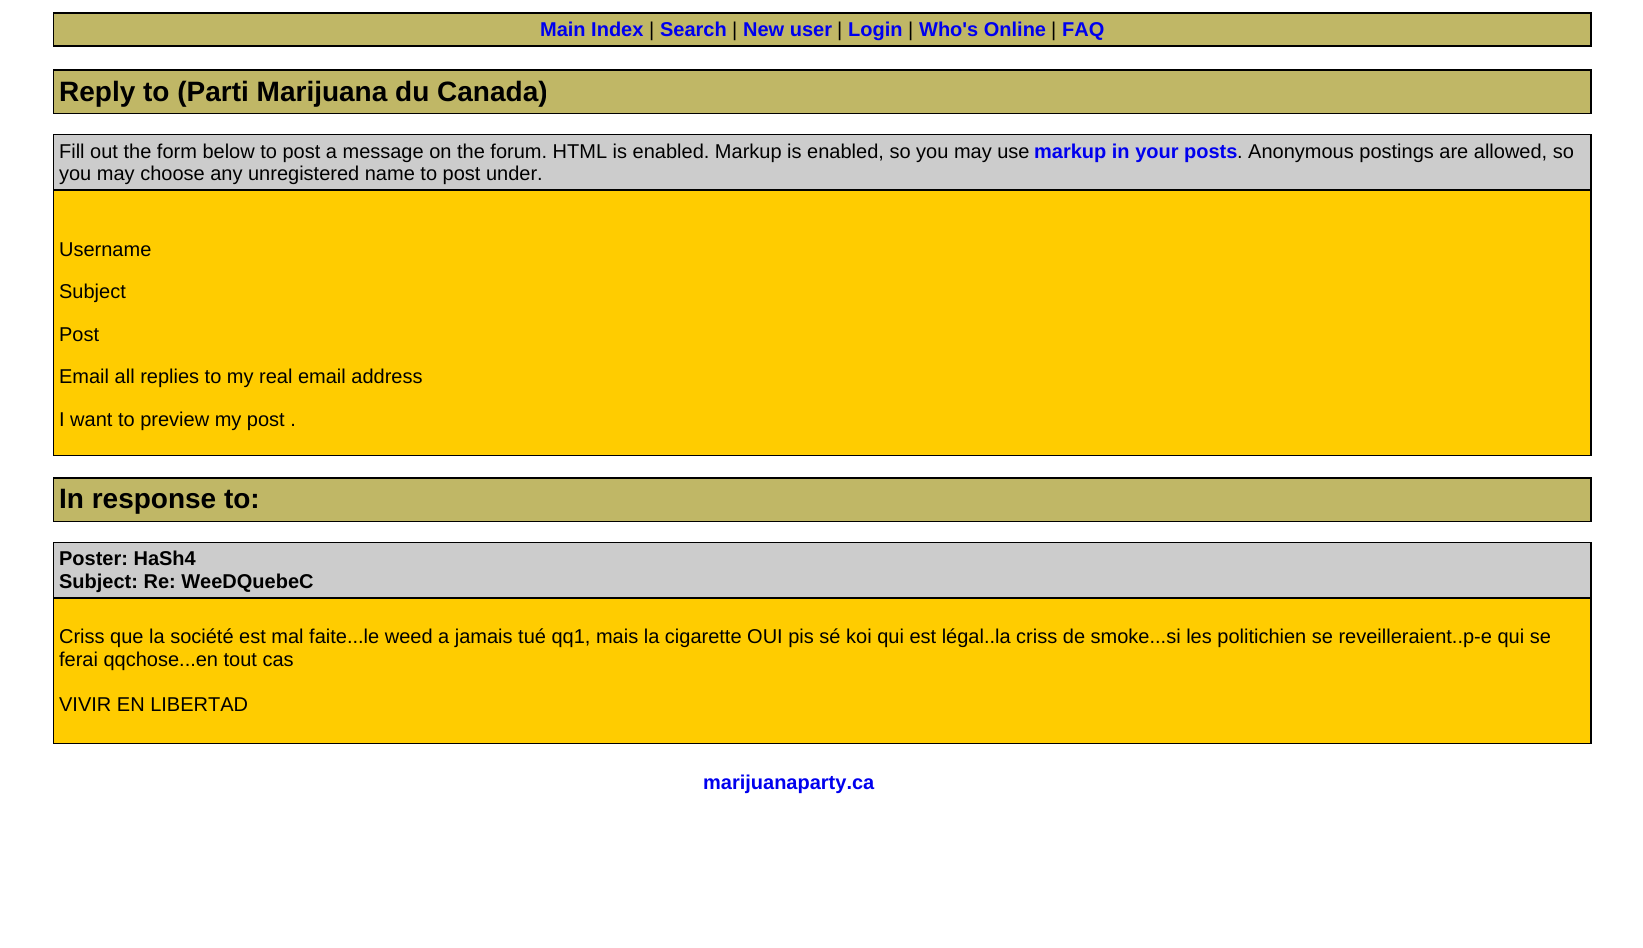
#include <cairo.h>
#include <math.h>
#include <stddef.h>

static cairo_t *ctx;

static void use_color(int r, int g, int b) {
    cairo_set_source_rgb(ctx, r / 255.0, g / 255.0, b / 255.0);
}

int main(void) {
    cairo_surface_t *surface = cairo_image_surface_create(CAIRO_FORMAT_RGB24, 1643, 948);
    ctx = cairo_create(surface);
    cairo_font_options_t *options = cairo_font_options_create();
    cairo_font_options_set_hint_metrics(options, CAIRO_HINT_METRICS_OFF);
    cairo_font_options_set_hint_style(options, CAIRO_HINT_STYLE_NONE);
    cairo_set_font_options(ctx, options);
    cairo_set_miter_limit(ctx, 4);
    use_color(255, 255, 255);
    cairo_paint(ctx);
    use_color(0, 0, 0);
    cairo_rectangle(ctx, 53, 12, 1539, 35);
    cairo_fill(ctx);
    use_color(192, 183, 102);
    cairo_rectangle(ctx, 54, 14, 1536, 31);
    cairo_fill(ctx);
    cairo_select_font_face(ctx, "Liberation Sans", CAIRO_FONT_SLANT_NORMAL, CAIRO_FONT_WEIGHT_BOLD);
    cairo_set_font_size(ctx, 20);
    use_color(0, 0, 238);
    cairo_move_to(ctx, 540, 36);
    cairo_show_text(ctx, "Main Index");
    cairo_select_font_face(ctx, "Liberation Sans", CAIRO_FONT_SLANT_NORMAL, CAIRO_FONT_WEIGHT_NORMAL);
    use_color(0, 0, 0);
    cairo_move_to(ctx, 649, 36);
    cairo_show_text(ctx, "|");
    cairo_select_font_face(ctx, "Liberation Sans", CAIRO_FONT_SLANT_NORMAL, CAIRO_FONT_WEIGHT_BOLD);
    use_color(0, 0, 238);
    cairo_move_to(ctx, 660, 36);
    cairo_show_text(ctx, "Search");
    cairo_select_font_face(ctx, "Liberation Sans", CAIRO_FONT_SLANT_NORMAL, CAIRO_FONT_WEIGHT_NORMAL);
    use_color(0, 0, 0);
    cairo_move_to(ctx, 732, 36);
    cairo_show_text(ctx, "|");
    cairo_select_font_face(ctx, "Liberation Sans", CAIRO_FONT_SLANT_NORMAL, CAIRO_FONT_WEIGHT_BOLD);
    use_color(0, 0, 238);
    cairo_move_to(ctx, 743, 36);
    cairo_show_text(ctx, "New user");
    cairo_select_font_face(ctx, "Liberation Sans", CAIRO_FONT_SLANT_NORMAL, CAIRO_FONT_WEIGHT_NORMAL);
    use_color(0, 0, 0);
    cairo_move_to(ctx, 837, 36);
    cairo_show_text(ctx, "|");
    cairo_select_font_face(ctx, "Liberation Sans", CAIRO_FONT_SLANT_NORMAL, CAIRO_FONT_WEIGHT_BOLD);
    use_color(0, 0, 238);
    cairo_move_to(ctx, 848, 36);
    cairo_show_text(ctx, "Login");
    cairo_select_font_face(ctx, "Liberation Sans", CAIRO_FONT_SLANT_NORMAL, CAIRO_FONT_WEIGHT_NORMAL);
    use_color(0, 0, 0);
    cairo_move_to(ctx, 908, 36);
    cairo_show_text(ctx, "|");
    cairo_select_font_face(ctx, "Liberation Sans", CAIRO_FONT_SLANT_NORMAL, CAIRO_FONT_WEIGHT_BOLD);
    use_color(0, 0, 238);
    cairo_move_to(ctx, 919, 36);
    cairo_show_text(ctx, "Who's Online");
    cairo_select_font_face(ctx, "Liberation Sans", CAIRO_FONT_SLANT_NORMAL, CAIRO_FONT_WEIGHT_NORMAL);
    use_color(0, 0, 0);
    cairo_move_to(ctx, 1051, 36);
    cairo_show_text(ctx, "|");
    cairo_select_font_face(ctx, "Liberation Sans", CAIRO_FONT_SLANT_NORMAL, CAIRO_FONT_WEIGHT_BOLD);
    use_color(0, 0, 238);
    cairo_move_to(ctx, 1062, 36);
    cairo_show_text(ctx, "FAQ");
    use_color(0, 0, 0);
    cairo_rectangle(ctx, 53, 69, 1539, 45);
    cairo_fill(ctx);
    use_color(192, 183, 102);
    cairo_rectangle(ctx, 54, 71, 1536, 42);
    cairo_fill(ctx);
    cairo_set_font_size(ctx, 28);
    use_color(0, 0, 0);
    cairo_move_to(ctx, 59, 101);
    cairo_show_text(ctx, "Reply to (Parti Marijuana du Canada)");
    cairo_rectangle(ctx, 53, 134, 1539, 322);
    cairo_fill(ctx);
    use_color(204, 204, 204);
    cairo_rectangle(ctx, 54, 135, 1536, 54);
    cairo_fill(ctx);
    cairo_select_font_face(ctx, "Liberation Sans", CAIRO_FONT_SLANT_NORMAL, CAIRO_FONT_WEIGHT_NORMAL);
    cairo_set_font_size(ctx, 20);
    use_color(0, 0, 0);
    cairo_move_to(ctx, 59, 158);
    cairo_show_text(ctx, "Fill out the form below to post a message on the forum. HTML is enabled. Markup is enabled, so you may use");
    cairo_select_font_face(ctx, "Liberation Sans", CAIRO_FONT_SLANT_NORMAL, CAIRO_FONT_WEIGHT_BOLD);
    use_color(0, 0, 238);
    cairo_move_to(ctx, 1034, 158);
    cairo_show_text(ctx, "markup in your posts");
    cairo_select_font_face(ctx, "Liberation Sans", CAIRO_FONT_SLANT_NORMAL, CAIRO_FONT_WEIGHT_NORMAL);
    use_color(0, 0, 0);
    cairo_move_to(ctx, 1237, 158);
    cairo_show_text(ctx, ". Anonymous postings are allowed, so");
    cairo_move_to(ctx, 59, 180);
    cairo_show_text(ctx, "you may choose any unregistered name to post under.");
    use_color(255, 204, 0);
    cairo_rectangle(ctx, 54, 191, 1536, 264);
    cairo_fill(ctx);
    use_color(0, 0, 0);
    cairo_move_to(ctx, 59, 256);
    cairo_show_text(ctx, "Username");
    cairo_move_to(ctx, 59, 298);
    cairo_show_text(ctx, "Subject");
    cairo_move_to(ctx, 59, 341);
    cairo_show_text(ctx, "Post");
    cairo_move_to(ctx, 59, 383);
    cairo_show_text(ctx, "Email all replies to my real email address");
    cairo_move_to(ctx, 59, 426);
    cairo_show_text(ctx, "I want to preview my post .");
    cairo_rectangle(ctx, 53, 477, 1539, 45);
    cairo_fill(ctx);
    use_color(192, 183, 102);
    cairo_rectangle(ctx, 54, 479, 1536, 42);
    cairo_fill(ctx);
    cairo_select_font_face(ctx, "Liberation Sans", CAIRO_FONT_SLANT_NORMAL, CAIRO_FONT_WEIGHT_BOLD);
    cairo_set_font_size(ctx, 28);
    use_color(0, 0, 0);
    cairo_move_to(ctx, 59, 508);
    cairo_show_text(ctx, "In response to:");
    cairo_rectangle(ctx, 53, 542, 1539, 202);
    cairo_fill(ctx);
    use_color(204, 204, 204);
    cairo_rectangle(ctx, 54, 543, 1536, 54);
    cairo_fill(ctx);
    cairo_set_font_size(ctx, 20);
    use_color(0, 0, 0);
    cairo_move_to(ctx, 59, 565);
    cairo_show_text(ctx, "Poster: HaSh4");
    cairo_move_to(ctx, 59, 588);
    cairo_show_text(ctx, "Subject: Re: WeeDQuebeC");
    use_color(255, 204, 0);
    cairo_rectangle(ctx, 54, 599, 1536, 144);
    cairo_fill(ctx);
    cairo_select_font_face(ctx, "Liberation Sans", CAIRO_FONT_SLANT_NORMAL, CAIRO_FONT_WEIGHT_NORMAL);
    use_color(0, 0, 0);
    cairo_move_to(ctx, 59, 643);
    cairo_show_text(ctx, "Criss que la société est mal faite...le weed a jamais tué qq1, mais la cigarette OUI pis sé koi qui est légal..la criss de smoke...si les politichien se reveilleraient..p-e qui se");
    cairo_move_to(ctx, 59, 666);
    cairo_show_text(ctx, "ferai qqchose...en tout cas");
    cairo_move_to(ctx, 59, 711);
    cairo_show_text(ctx, "VIVIR EN LIBERTAD");
    cairo_select_font_face(ctx, "Liberation Sans", CAIRO_FONT_SLANT_NORMAL, CAIRO_FONT_WEIGHT_BOLD);
    use_color(0, 0, 238);
    cairo_move_to(ctx, 703, 789);
    cairo_show_text(ctx, "marijuanaparty.ca");
    cairo_surface_write_to_png(surface, "result.png");
    cairo_font_options_destroy(options);
    cairo_destroy(ctx);
    cairo_surface_destroy(surface);
    return 0;
}
